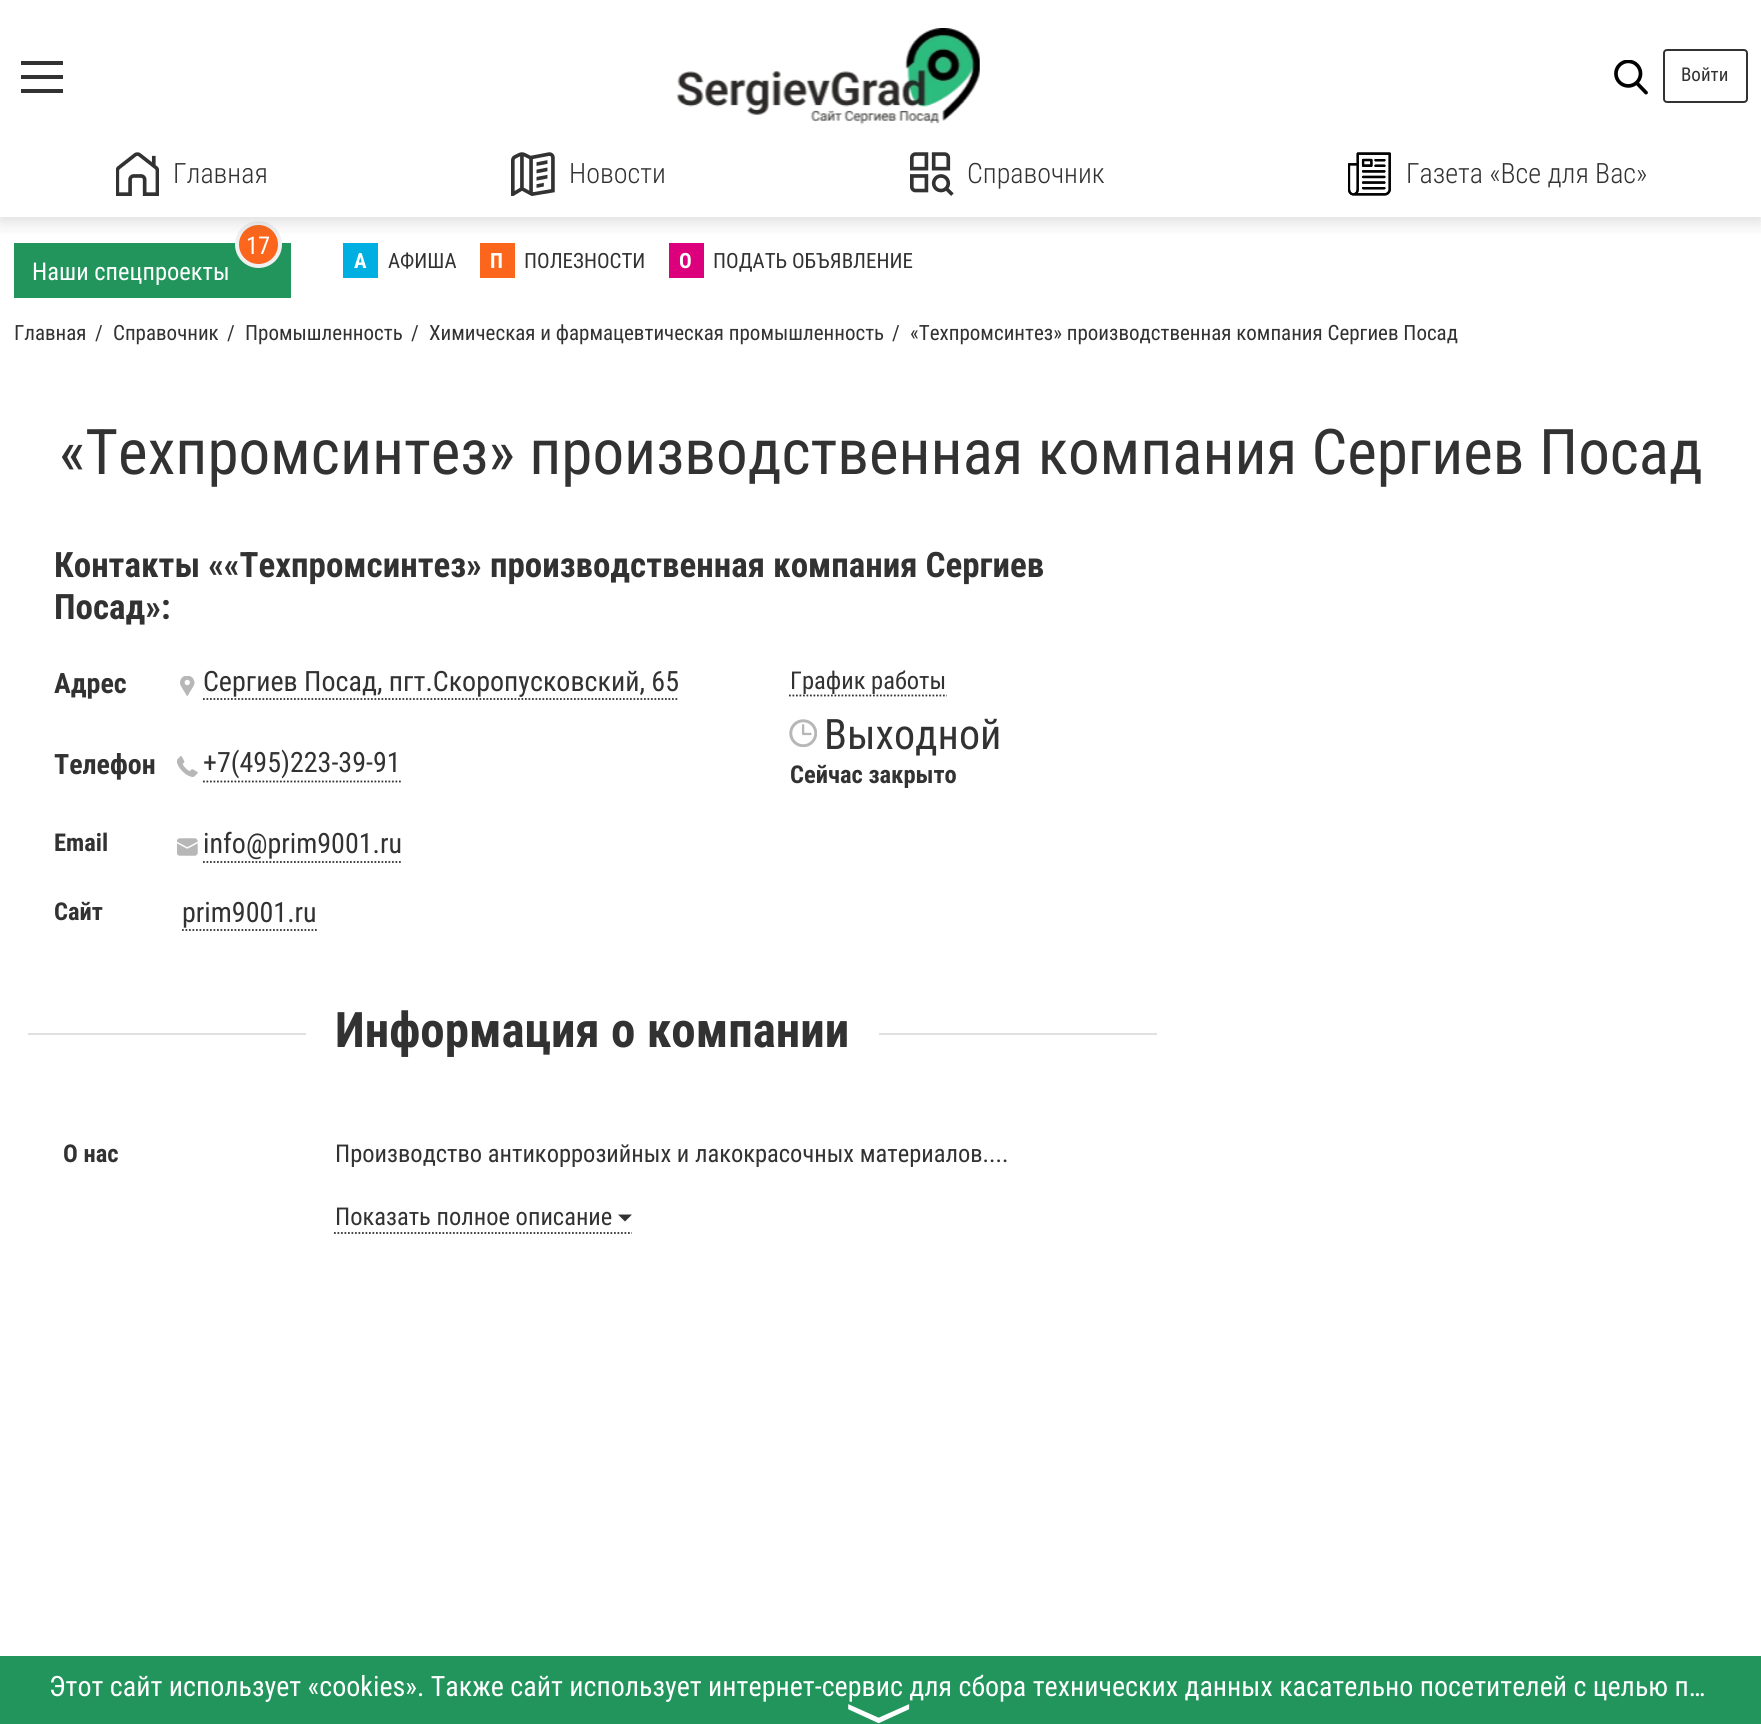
#include <cairo.h>
#include <math.h>
#include <stddef.h>

static cairo_t *ctx;

static void use_color(int r, int g, int b) {
    cairo_set_source_rgb(ctx, r / 255.0, g / 255.0, b / 255.0);
}

static void round_rect(double x, double y, double w, double h, double r) {
    cairo_new_sub_path(ctx);
    cairo_arc(ctx, x + w - r, y + h - r, r, 0, M_PI / 2);
    cairo_arc(ctx, x + r, y + h - r, r, M_PI / 2, M_PI);
    cairo_arc(ctx, x + r, y + r, r, M_PI, 1.5 * M_PI);
    cairo_arc(ctx, x + w - r, y + r, r, 1.5 * M_PI, 2 * M_PI);
    cairo_close_path(ctx);
}

static void shadow(double x, double y, double w, double h, double r, double blur, double alpha) {
    cairo_push_group_with_content(ctx, CAIRO_CONTENT_ALPHA);
    cairo_set_operator(ctx, CAIRO_OPERATOR_SOURCE);
    for (int i = 15; i >= -15 && fmin(w, h) + blur * i / 3 > 0; i -= 2) {
        double e = blur * i / 6;
        cairo_set_source_rgba(ctx, 0, 0, 0, alpha * erfc((i - 1) / 8.5) / 2);
        round_rect(x - e, y - e, w + 2 * e, h + 2 * e, fmax(0, fmin(r + e + blur * .6, fmin(w, h) / 2 + e)));
        cairo_fill(ctx);
    }
    cairo_pattern_t *soft = cairo_pop_group(ctx);
    cairo_mask(ctx, soft);
    cairo_pattern_destroy(soft);
}

static void picture(const char *path, double x, double y, double w, double h) {
    cairo_surface_t *image = cairo_image_surface_create_from_png(path);
    cairo_save(ctx);
    cairo_set_source_surface(ctx, image, x, y);
    cairo_rectangle(ctx, x, y, w, h);
    cairo_fill(ctx);
    cairo_restore(ctx);
    cairo_surface_destroy(image);
}

int main(void) {
    cairo_surface_t *surface = cairo_image_surface_create(CAIRO_FORMAT_RGB24, 1761, 1724);
    ctx = cairo_create(surface);
    cairo_font_options_t *options = cairo_font_options_create();
    cairo_font_options_set_hint_metrics(options, CAIRO_HINT_METRICS_OFF);
    cairo_font_options_set_hint_style(options, CAIRO_HINT_STYLE_NONE);
    cairo_set_font_options(ctx, options);
    cairo_set_miter_limit(ctx, 4);
    use_color(255, 255, 255);
    cairo_paint(ctx);
    use_color(34, 149, 93);
    cairo_rectangle(ctx, 14, 243, 277, 55);
    cairo_fill(ctx);
    use_color(251, 102, 28);
    cairo_arc(ctx, 258.5, 244.5, 21.5, 0, 2 * M_PI);
    cairo_fill_preserve(ctx);
    use_color(240, 240, 240);
    cairo_set_line_width(ctx, 4);
    cairo_stroke(ctx);
    use_color(0, 175, 225);
    cairo_rectangle(ctx, 343, 243, 35, 35);
    cairo_fill(ctx);
    use_color(251, 102, 28);
    cairo_rectangle(ctx, 480, 243, 35, 35);
    cairo_fill(ctx);
    use_color(220, 0, 124);
    cairo_rectangle(ctx, 669, 243, 35, 35);
    cairo_fill(ctx);
    cairo_save(ctx);
    cairo_rectangle(ctx, 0, 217, 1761, 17);
    cairo_clip(ctx);
    use_color(78, 78, 78);
    shadow(0, 5, 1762, 217, 0, 9, 0.2);
    cairo_restore(ctx);
    use_color(50, 50, 50);
    cairo_rectangle(ctx, 21, 75, 42, 4);
    cairo_fill(ctx);
    cairo_rectangle(ctx, 21, 61, 42, 4);
    cairo_fill(ctx);
    cairo_rectangle(ctx, 21, 89, 42, 4);
    cairo_fill(ctx);
    picture("img1.png", 676, 28, 304, 97);
    picture("img2.png", 1614, 60, 34, 35);
    round_rect(1664, 50, 83, 52, 3);
    cairo_set_line_width(ctx, 2);
    cairo_stroke(ctx);
    cairo_select_font_face(ctx, "Roboto Condensed", CAIRO_FONT_SLANT_NORMAL, CAIRO_FONT_WEIGHT_NORMAL);
    cairo_set_font_size(ctx, 19);
    cairo_move_to(ctx, 1681, 81);
    cairo_show_text(ctx, "Войти");
    picture("img3.png", 116, 152, 43, 44);
    cairo_select_font_face(ctx, "Roboto Condensed Light", CAIRO_FONT_SLANT_NORMAL, CAIRO_FONT_WEIGHT_NORMAL);
    cairo_set_font_size(ctx, 28);
    cairo_move_to(ctx, 173, 183);
    cairo_show_text(ctx, "Главная");
    picture("img4.png", 511, 152, 44, 44);
    cairo_move_to(ctx, 569, 183);
    cairo_show_text(ctx, "Новости");
    picture("img5.png", 910, 152, 44, 44);
    cairo_move_to(ctx, 967, 183);
    cairo_show_text(ctx, "Справочник");
    picture("img6.png", 1348, 152, 43, 44);
    cairo_move_to(ctx, 1406, 183);
    cairo_show_text(ctx, "Газета «Все для Вас»");
    cairo_select_font_face(ctx, "Roboto Condensed", CAIRO_FONT_SLANT_NORMAL, CAIRO_FONT_WEIGHT_NORMAL);
    cairo_set_font_size(ctx, 24.5);
    use_color(255, 255, 255);
    cairo_move_to(ctx, 246, 254);
    cairo_show_text(ctx, "17");
    cairo_move_to(ctx, 32, 280);
    cairo_show_text(ctx, "Наши спецпроекты");
    cairo_select_font_face(ctx, "Roboto Condensed", CAIRO_FONT_SLANT_NORMAL, CAIRO_FONT_WEIGHT_BOLD);
    cairo_set_font_size(ctx, 21);
    cairo_move_to(ctx, 354, 268);
    cairo_show_text(ctx, "А");
    cairo_select_font_face(ctx, "Roboto Condensed", CAIRO_FONT_SLANT_NORMAL, CAIRO_FONT_WEIGHT_NORMAL);
    use_color(50, 50, 50);
    cairo_move_to(ctx, 388, 268);
    cairo_show_text(ctx, "АФИША");
    cairo_select_font_face(ctx, "Roboto Condensed", CAIRO_FONT_SLANT_NORMAL, CAIRO_FONT_WEIGHT_BOLD);
    use_color(255, 255, 255);
    cairo_move_to(ctx, 490, 268);
    cairo_show_text(ctx, "П");
    cairo_select_font_face(ctx, "Roboto Condensed", CAIRO_FONT_SLANT_NORMAL, CAIRO_FONT_WEIGHT_NORMAL);
    use_color(50, 50, 50);
    cairo_move_to(ctx, 524, 268);
    cairo_show_text(ctx, "ПОЛЕЗНОСТИ");
    cairo_select_font_face(ctx, "Roboto Condensed", CAIRO_FONT_SLANT_NORMAL, CAIRO_FONT_WEIGHT_BOLD);
    use_color(255, 255, 255);
    cairo_move_to(ctx, 679, 268);
    cairo_show_text(ctx, "О");
    cairo_select_font_face(ctx, "Roboto Condensed", CAIRO_FONT_SLANT_NORMAL, CAIRO_FONT_WEIGHT_NORMAL);
    use_color(50, 50, 50);
    cairo_move_to(ctx, 713, 268);
    cairo_show_text(ctx, "ПОДАТЬ ОБЪЯВЛЕНИЕ");
    cairo_move_to(ctx, 14, 340);
    cairo_show_text(ctx, "Главная");
    cairo_move_to(ctx, 95, 340);
    cairo_show_text(ctx, "/");
    cairo_move_to(ctx, 113, 340);
    cairo_show_text(ctx, "Справочник");
    cairo_move_to(ctx, 227, 340);
    cairo_show_text(ctx, "/");
    cairo_move_to(ctx, 245, 340);
    cairo_show_text(ctx, "Промышленность");
    cairo_move_to(ctx, 411, 340);
    cairo_show_text(ctx, "/");
    cairo_move_to(ctx, 429, 340);
    cairo_show_text(ctx, "Химическая и фармацевтическая промышленность");
    cairo_move_to(ctx, 892, 340);
    cairo_show_text(ctx, "/");
    cairo_move_to(ctx, 910, 340);
    cairo_show_text(ctx, "«Техпромсинтез» производственная компания Сергиев Посад");
    cairo_set_font_size(ctx, 63);
    cairo_move_to(ctx, 59, 474);
    cairo_show_text(ctx, "«Техпромсинтез» производственная компания Сергиев Посад");
    cairo_select_font_face(ctx, "Roboto Condensed", CAIRO_FONT_SLANT_NORMAL, CAIRO_FONT_WEIGHT_BOLD);
    cairo_set_font_size(ctx, 35);
    cairo_move_to(ctx, 54, 577);
    cairo_show_text(ctx, "Контакты ««Техпромсинтез» производственная компания Сергиев");
    cairo_move_to(ctx, 54, 619);
    cairo_show_text(ctx, "Посад»:");
    cairo_set_font_size(ctx, 28);
    cairo_move_to(ctx, 54, 693);
    cairo_show_text(ctx, "Адрес");
    picture("img7.png", 180, 676, 15, 21);
    cairo_new_path(ctx);
    cairo_move_to(ctx, 203, 699);
    cairo_line_to(ctx, 679, 699);
    cairo_set_line_width(ctx, 1.8);
    cairo_set_dash(ctx, (double[]){1.75, 1.75}, 2, 0);
    cairo_stroke(ctx);
    cairo_select_font_face(ctx, "Roboto Condensed", CAIRO_FONT_SLANT_NORMAL, CAIRO_FONT_WEIGHT_NORMAL);
    cairo_move_to(ctx, 203, 691);
    cairo_show_text(ctx, "Сергиев Посад, пгт.Скоропусковский, 65");
    cairo_select_font_face(ctx, "Roboto Condensed", CAIRO_FONT_SLANT_NORMAL, CAIRO_FONT_WEIGHT_BOLD);
    cairo_move_to(ctx, 54, 774);
    cairo_show_text(ctx, "Телефон");
    picture("img8.png", 177, 756, 21, 21);
    cairo_new_path(ctx);
    cairo_move_to(ctx, 203, 781.5);
    cairo_line_to(ctx, 401, 781.5);
    cairo_stroke(ctx);
    cairo_select_font_face(ctx, "Roboto Condensed", CAIRO_FONT_SLANT_NORMAL, CAIRO_FONT_WEIGHT_NORMAL);
    cairo_move_to(ctx, 203, 772);
    cairo_show_text(ctx, "+7(495)223-39-91");
    cairo_select_font_face(ctx, "Roboto Condensed", CAIRO_FONT_SLANT_NORMAL, CAIRO_FONT_WEIGHT_BOLD);
    cairo_set_font_size(ctx, 24.5);
    cairo_move_to(ctx, 54, 851);
    cairo_show_text(ctx, "Email");
    picture("img9.png", 177, 838, 21, 18);
    cairo_new_path(ctx);
    cairo_move_to(ctx, 203, 862);
    cairo_line_to(ctx, 402.5, 862);
    cairo_stroke(ctx);
    cairo_select_font_face(ctx, "Roboto Condensed", CAIRO_FONT_SLANT_NORMAL, CAIRO_FONT_WEIGHT_NORMAL);
    cairo_set_font_size(ctx, 28);
    cairo_move_to(ctx, 203, 853);
    cairo_show_text(ctx, "info@prim9001.ru");
    cairo_select_font_face(ctx, "Roboto Condensed", CAIRO_FONT_SLANT_NORMAL, CAIRO_FONT_WEIGHT_BOLD);
    cairo_set_font_size(ctx, 24.5);
    cairo_move_to(ctx, 54, 920);
    cairo_show_text(ctx, "Сайт");
    cairo_new_path(ctx);
    cairo_move_to(ctx, 182, 930);
    cairo_line_to(ctx, 317, 930);
    cairo_stroke(ctx);
    cairo_select_font_face(ctx, "Roboto Condensed", CAIRO_FONT_SLANT_NORMAL, CAIRO_FONT_WEIGHT_NORMAL);
    cairo_set_font_size(ctx, 28);
    cairo_move_to(ctx, 182, 922);
    cairo_show_text(ctx, "prim9001.ru");
    cairo_set_font_size(ctx, 24.5);
    cairo_move_to(ctx, 790, 689);
    cairo_show_text(ctx, "График работы");
    cairo_new_path(ctx);
    cairo_move_to(ctx, 789, 695.5);
    cairo_line_to(ctx, 947, 695.5);
    cairo_stroke(ctx);
    picture("img10.png", 789, 719, 28, 28);
    cairo_set_font_size(ctx, 42);
    cairo_move_to(ctx, 824, 749);
    cairo_show_text(ctx, "Выходной");
    cairo_select_font_face(ctx, "Roboto Condensed", CAIRO_FONT_SLANT_NORMAL, CAIRO_FONT_WEIGHT_BOLD);
    cairo_set_font_size(ctx, 24.5);
    cairo_move_to(ctx, 790, 783);
    cairo_show_text(ctx, "Сейчас закрыто");
    use_color(224, 224, 224);
    cairo_rectangle(ctx, 28, 1033, 278, 2);
    cairo_fill(ctx);
    cairo_set_font_size(ctx, 49);
    use_color(50, 50, 50);
    cairo_move_to(ctx, 335, 1047);
    cairo_show_text(ctx, "Информация о компании");
    use_color(224, 224, 224);
    cairo_rectangle(ctx, 879, 1033, 278, 2);
    cairo_fill(ctx);
    cairo_set_font_size(ctx, 24.5);
    use_color(50, 50, 50);
    cairo_move_to(ctx, 63, 1162);
    cairo_show_text(ctx, "О нас");
    cairo_select_font_face(ctx, "Roboto Condensed", CAIRO_FONT_SLANT_NORMAL, CAIRO_FONT_WEIGHT_NORMAL);
    cairo_move_to(ctx, 335, 1162);
    cairo_show_text(ctx, "Производство антикоррозийных и лакокрасочных материалов....");
    cairo_new_path(ctx);
    cairo_move_to(ctx, 334, 1233);
    cairo_line_to(ctx, 632, 1233);
    cairo_stroke(ctx);
    cairo_move_to(ctx, 335, 1225);
    cairo_show_text(ctx, "Показать полное описание");
    cairo_new_path(ctx);
    cairo_move_to(ctx, 618, 1214.5);
    cairo_line_to(ctx, 632, 1214.5);
    cairo_line_to(ctx, 625, 1221.5);
    cairo_close_path(ctx);
    cairo_fill(ctx);
    use_color(34, 149, 93);
    cairo_rectangle(ctx, 0, 1656, 1761, 68);
    cairo_fill(ctx);
    cairo_set_font_size(ctx, 28);
    use_color(255, 255, 255);
    cairo_move_to(ctx, 49, 1696);
    cairo_show_text(ctx, "Этот сайт использует «cookies». Также сайт использует интернет-сервис для сбора технических данных касательно посетителей с целью п…");
    cairo_select_font_face(ctx, "FreeSans", CAIRO_FONT_SLANT_NORMAL, CAIRO_FONT_WEIGHT_NORMAL);
    cairo_set_font_size(ctx, 70);
    cairo_save(ctx);
    cairo_translate(ctx, 858, 1702);
    cairo_rotate(ctx, 90 * M_PI / 180);
    cairo_move_to(ctx, 0, 0);
    cairo_show_text(ctx, "〉");
    cairo_restore(ctx);
    cairo_surface_write_to_png(surface, "result.png");
    cairo_font_options_destroy(options);
    cairo_destroy(ctx);
    cairo_surface_destroy(surface);
    return 0;
}
